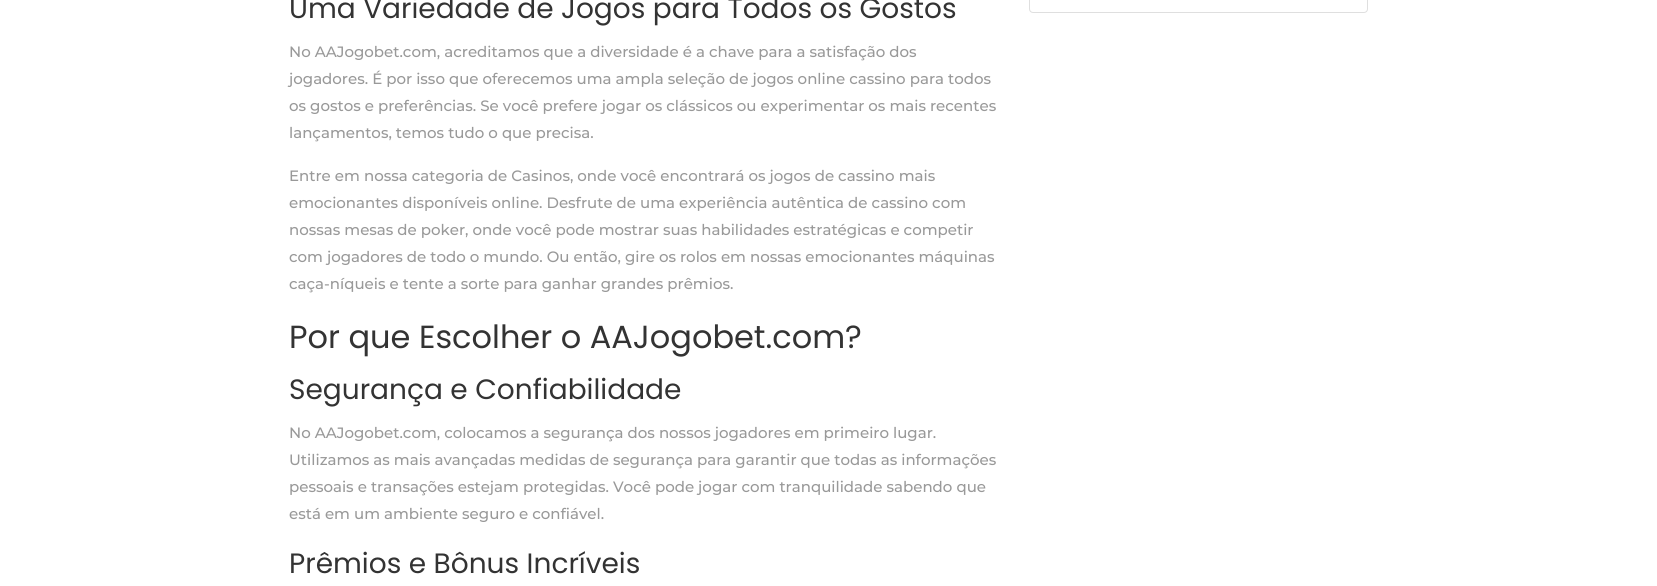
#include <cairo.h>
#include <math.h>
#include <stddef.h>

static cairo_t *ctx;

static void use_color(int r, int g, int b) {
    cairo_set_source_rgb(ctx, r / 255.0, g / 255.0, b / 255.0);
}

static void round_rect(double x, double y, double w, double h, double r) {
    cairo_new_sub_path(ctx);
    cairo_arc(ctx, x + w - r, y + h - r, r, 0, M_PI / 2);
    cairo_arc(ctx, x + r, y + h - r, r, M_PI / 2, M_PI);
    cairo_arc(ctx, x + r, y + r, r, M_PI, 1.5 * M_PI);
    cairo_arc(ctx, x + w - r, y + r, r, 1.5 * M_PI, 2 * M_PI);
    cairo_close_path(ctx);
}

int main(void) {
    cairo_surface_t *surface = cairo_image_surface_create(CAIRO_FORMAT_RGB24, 1657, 586);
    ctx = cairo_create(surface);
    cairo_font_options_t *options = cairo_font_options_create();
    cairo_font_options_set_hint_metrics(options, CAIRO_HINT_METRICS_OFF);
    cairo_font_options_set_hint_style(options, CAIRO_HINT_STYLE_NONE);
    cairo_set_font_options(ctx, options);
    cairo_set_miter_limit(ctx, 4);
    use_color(255, 255, 255);
    cairo_paint(ctx);
    cairo_select_font_face(ctx, "Poppins", CAIRO_FONT_SLANT_NORMAL, CAIRO_FONT_WEIGHT_NORMAL);
    cairo_set_font_size(ctx, 28);
    use_color(51, 51, 51);
    cairo_move_to(ctx, 289, 18);
    cairo_show_text(ctx, "Uma Variedade de Jogos para Todos os Gostos");
    cairo_select_font_face(ctx, "Montserrat Medium", CAIRO_FONT_SLANT_NORMAL, CAIRO_FONT_WEIGHT_NORMAL);
    cairo_set_font_size(ctx, 15);
    use_color(153, 153, 153);
    cairo_move_to(ctx, 289, 57);
    cairo_show_text(ctx, "No AAJogobet.com, acreditamos que a diversidade é a chave para a satisfação dos");
    cairo_move_to(ctx, 289, 84);
    cairo_show_text(ctx, "jogadores. É por isso que oferecemos uma ampla seleção de jogos online cassino para todos");
    cairo_move_to(ctx, 289, 111);
    cairo_show_text(ctx, "os gostos e preferências. Se você prefere jogar os clássicos ou experimentar os mais recentes");
    cairo_move_to(ctx, 289, 138);
    cairo_show_text(ctx, "lançamentos, temos tudo o que precisa.");
    cairo_move_to(ctx, 289, 181);
    cairo_show_text(ctx, "Entre em nossa categoria de Casinos, onde você encontrará os jogos de cassino mais");
    cairo_move_to(ctx, 289, 208);
    cairo_show_text(ctx, "emocionantes disponíveis online. Desfrute de uma experiência autêntica de cassino com");
    cairo_move_to(ctx, 289, 235);
    cairo_show_text(ctx, "nossas mesas de poker, onde você pode mostrar suas habilidades estratégicas e competir");
    cairo_move_to(ctx, 289, 262);
    cairo_show_text(ctx, "com jogadores de todo o mundo. Ou então, gire os rolos em nossas emocionantes máquinas");
    cairo_move_to(ctx, 289, 289);
    cairo_show_text(ctx, "caça-níqueis e tente a sorte para ganhar grandes prêmios.");
    cairo_select_font_face(ctx, "Poppins", CAIRO_FONT_SLANT_NORMAL, CAIRO_FONT_WEIGHT_NORMAL);
    cairo_set_font_size(ctx, 32);
    use_color(51, 51, 51);
    cairo_move_to(ctx, 289, 348);
    cairo_show_text(ctx, "Por que Escolher o AAJogobet.com?");
    cairo_set_font_size(ctx, 28);
    cairo_move_to(ctx, 289, 399);
    cairo_show_text(ctx, "Segurança e Confiabilidade");
    cairo_select_font_face(ctx, "Montserrat Medium", CAIRO_FONT_SLANT_NORMAL, CAIRO_FONT_WEIGHT_NORMAL);
    cairo_set_font_size(ctx, 15);
    use_color(153, 153, 153);
    cairo_move_to(ctx, 289, 438);
    cairo_show_text(ctx, "No AAJogobet.com, colocamos a segurança dos nossos jogadores em primeiro lugar.");
    cairo_move_to(ctx, 289, 465);
    cairo_show_text(ctx, "Utilizamos as mais avançadas medidas de segurança para garantir que todas as informações");
    cairo_move_to(ctx, 289, 492);
    cairo_show_text(ctx, "pessoais e transações estejam protegidas. Você pode jogar com tranquilidade sabendo que");
    cairo_move_to(ctx, 289, 519);
    cairo_show_text(ctx, "está em um ambiente seguro e confiável.");
    cairo_select_font_face(ctx, "Poppins", CAIRO_FONT_SLANT_NORMAL, CAIRO_FONT_WEIGHT_NORMAL);
    cairo_set_font_size(ctx, 28);
    use_color(51, 51, 51);
    cairo_move_to(ctx, 289, 573);
    cairo_show_text(ctx, "Prêmios e Bônus Incríveis");
    round_rect(1029.5, -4.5, 338, 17, 3.5);
    use_color(223, 223, 223);
    cairo_set_line_width(ctx, 1);
    cairo_stroke(ctx);
    cairo_surface_write_to_png(surface, "result.png");
    cairo_font_options_destroy(options);
    cairo_destroy(ctx);
    cairo_surface_destroy(surface);
    return 0;
}
